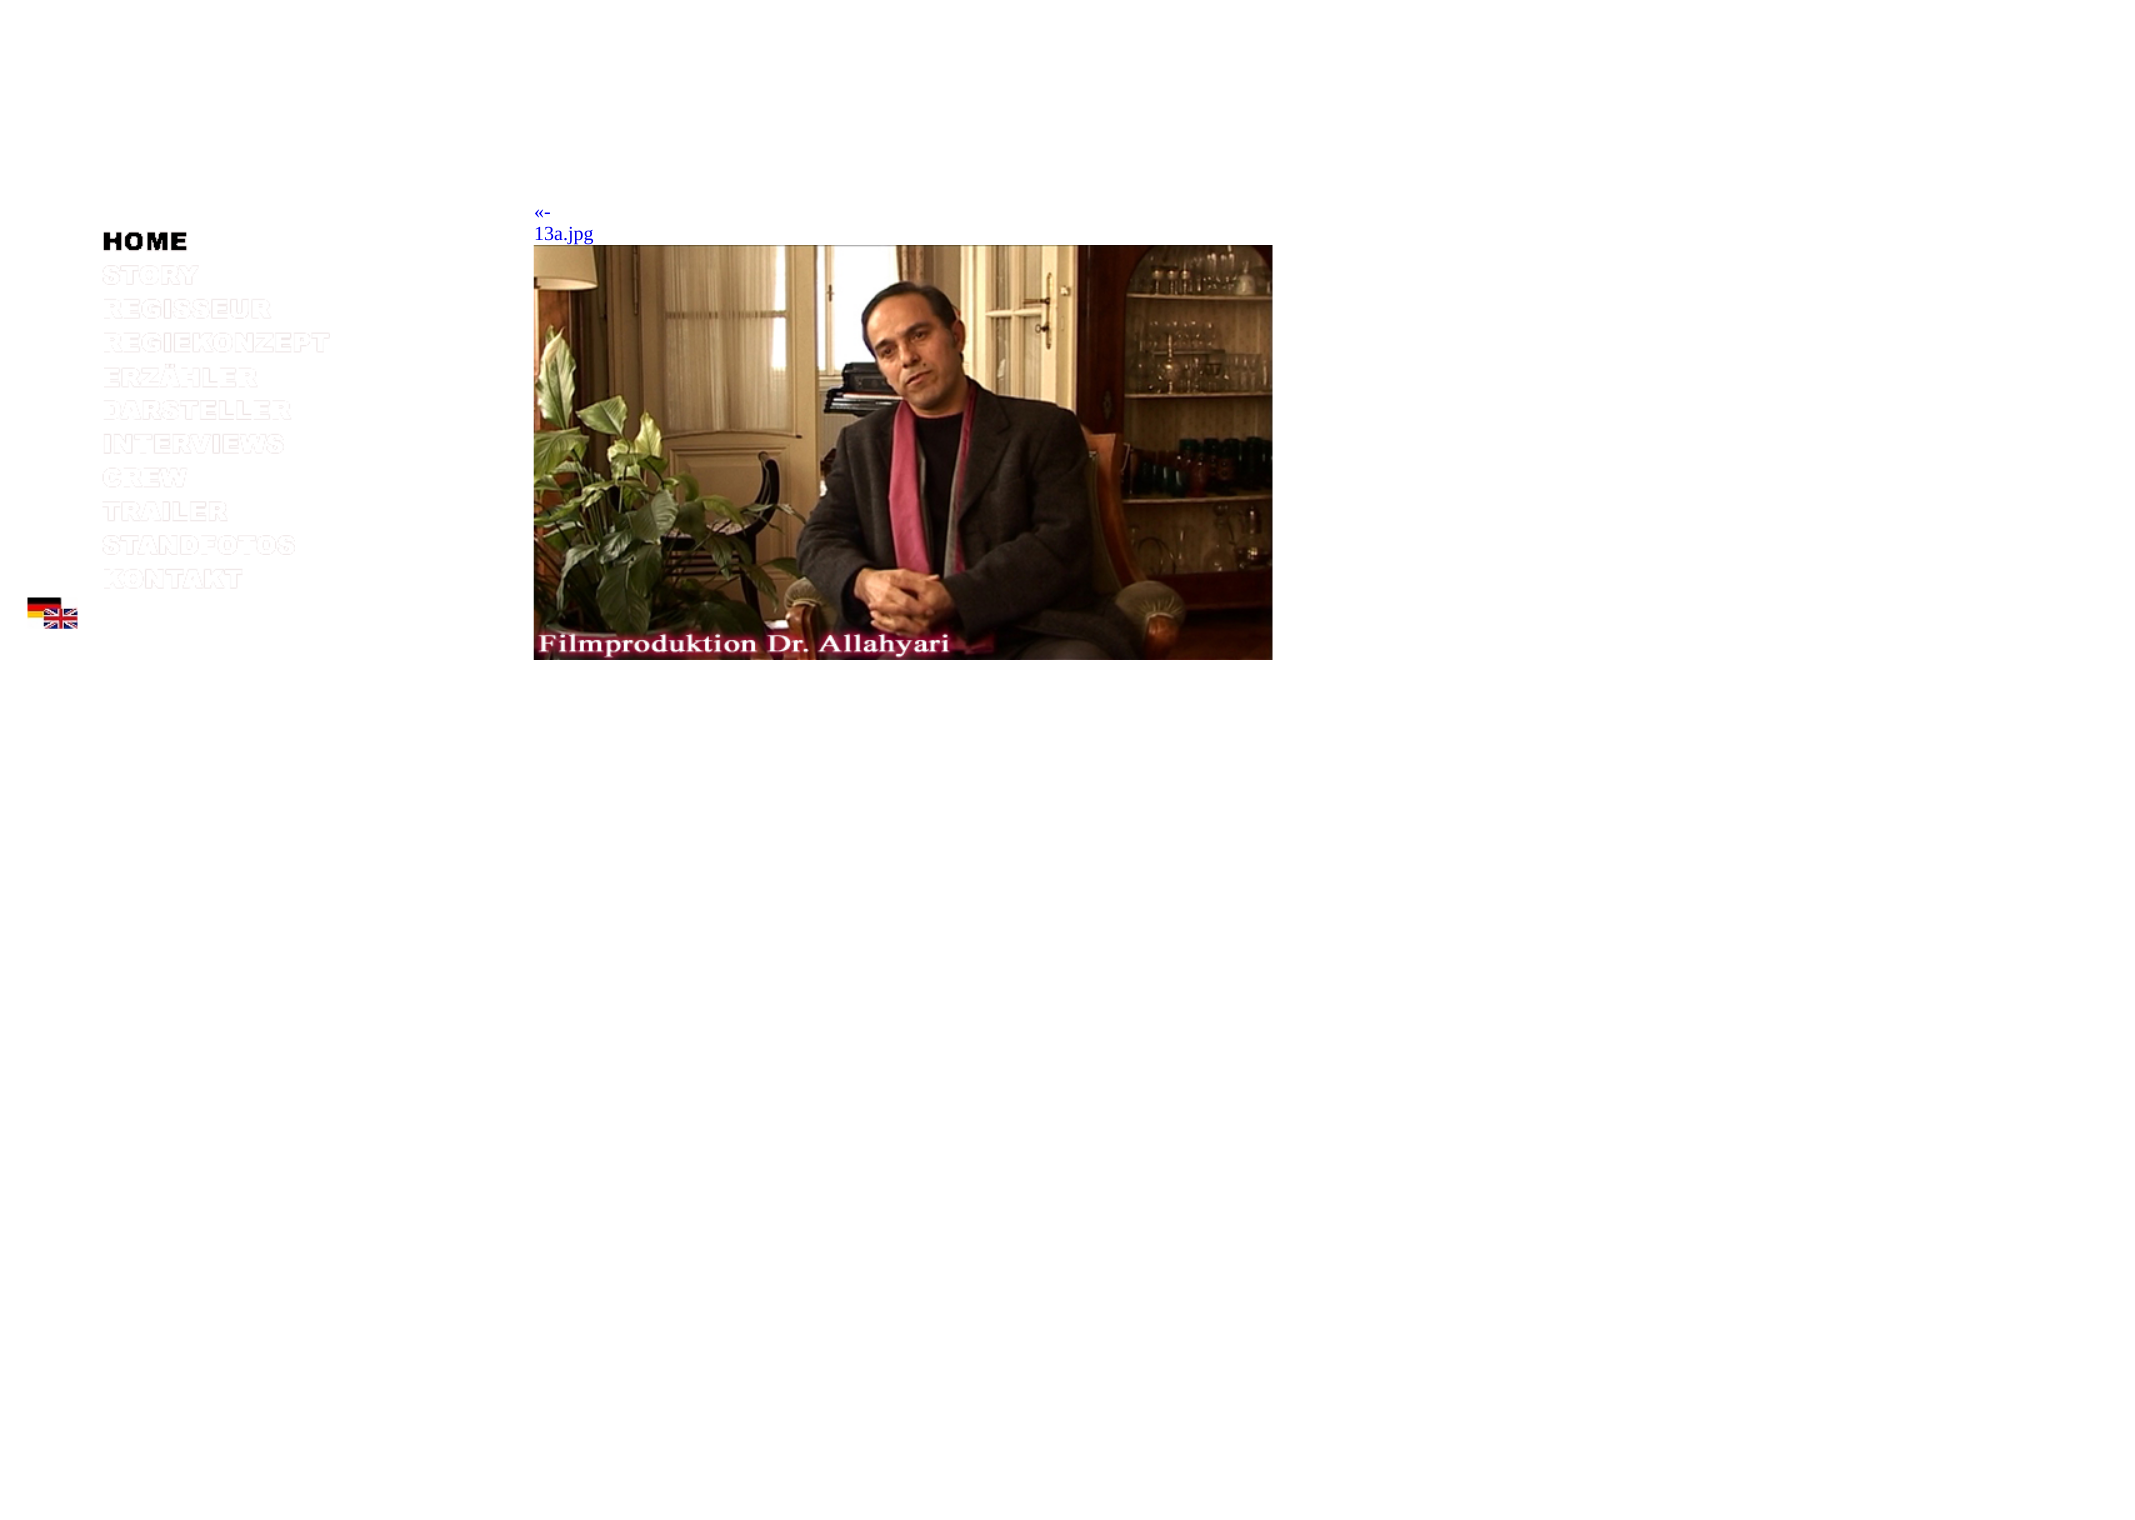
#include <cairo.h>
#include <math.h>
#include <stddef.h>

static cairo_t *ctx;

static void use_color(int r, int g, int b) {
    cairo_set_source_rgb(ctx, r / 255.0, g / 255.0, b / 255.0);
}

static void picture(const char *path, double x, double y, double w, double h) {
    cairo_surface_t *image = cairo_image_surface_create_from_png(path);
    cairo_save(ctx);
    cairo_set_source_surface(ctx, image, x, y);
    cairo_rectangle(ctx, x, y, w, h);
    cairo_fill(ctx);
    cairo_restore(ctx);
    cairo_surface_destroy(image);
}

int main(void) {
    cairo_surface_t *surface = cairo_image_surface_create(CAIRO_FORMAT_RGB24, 2135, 1520);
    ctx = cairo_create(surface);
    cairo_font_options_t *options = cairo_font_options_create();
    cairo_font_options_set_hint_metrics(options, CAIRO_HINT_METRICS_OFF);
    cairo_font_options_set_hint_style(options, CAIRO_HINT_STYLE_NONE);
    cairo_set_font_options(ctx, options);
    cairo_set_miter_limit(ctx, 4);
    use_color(255, 255, 255);
    cairo_paint(ctx);
    cairo_select_font_face(ctx, "Liberation Serif", CAIRO_FONT_SLANT_NORMAL, CAIRO_FONT_WEIGHT_NORMAL);
    cairo_set_font_size(ctx, 20);
    use_color(0, 0, 238);
    cairo_move_to(ctx, 534, 218);
    cairo_show_text(ctx, "«-");
    cairo_move_to(ctx, 534, 240);
    cairo_show_text(ctx, "13a.jpg");
    picture("img1.png", 533, 245, 740, 415);
    picture("img2.png", 103, 231, 85, 21);
    picture("img3.png", 102, 265, 97, 20);
    picture("img4.png", 104, 298, 168, 21);
    picture("img5.png", 104, 332, 226, 21);
    picture("img6.png", 104, 363, 154, 25);
    picture("img7.png", 103, 400, 189, 20);
    picture("img8.png", 103, 433, 181, 21);
    picture("img9.png", 102, 467, 86, 21);
    picture("img10.png", 102, 501, 126, 21);
    picture("img11.png", 102, 535, 193, 20);
    picture("img12.png", 104, 568, 139, 21);
    picture("img13.png", 27, 597, 51, 32);
    cairo_surface_write_to_png(surface, "result.png");
    cairo_font_options_destroy(options);
    cairo_destroy(ctx);
    cairo_surface_destroy(surface);
    return 0;
}
